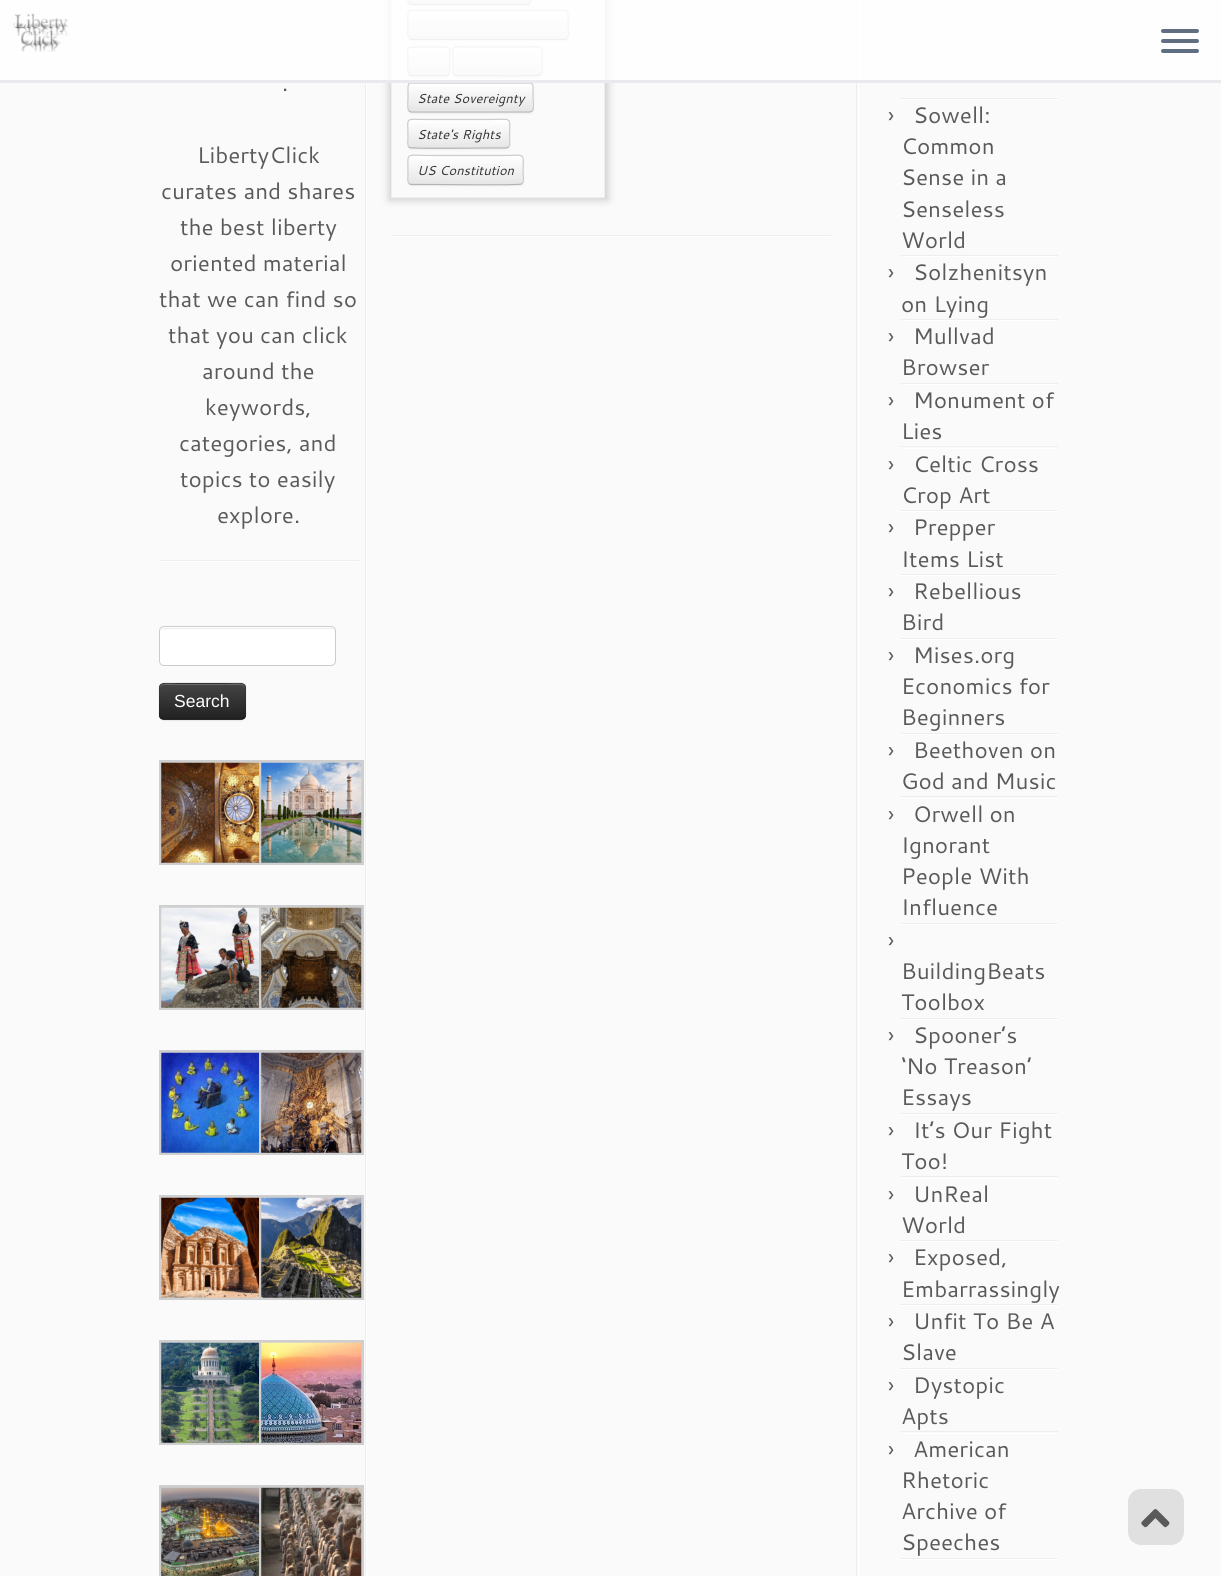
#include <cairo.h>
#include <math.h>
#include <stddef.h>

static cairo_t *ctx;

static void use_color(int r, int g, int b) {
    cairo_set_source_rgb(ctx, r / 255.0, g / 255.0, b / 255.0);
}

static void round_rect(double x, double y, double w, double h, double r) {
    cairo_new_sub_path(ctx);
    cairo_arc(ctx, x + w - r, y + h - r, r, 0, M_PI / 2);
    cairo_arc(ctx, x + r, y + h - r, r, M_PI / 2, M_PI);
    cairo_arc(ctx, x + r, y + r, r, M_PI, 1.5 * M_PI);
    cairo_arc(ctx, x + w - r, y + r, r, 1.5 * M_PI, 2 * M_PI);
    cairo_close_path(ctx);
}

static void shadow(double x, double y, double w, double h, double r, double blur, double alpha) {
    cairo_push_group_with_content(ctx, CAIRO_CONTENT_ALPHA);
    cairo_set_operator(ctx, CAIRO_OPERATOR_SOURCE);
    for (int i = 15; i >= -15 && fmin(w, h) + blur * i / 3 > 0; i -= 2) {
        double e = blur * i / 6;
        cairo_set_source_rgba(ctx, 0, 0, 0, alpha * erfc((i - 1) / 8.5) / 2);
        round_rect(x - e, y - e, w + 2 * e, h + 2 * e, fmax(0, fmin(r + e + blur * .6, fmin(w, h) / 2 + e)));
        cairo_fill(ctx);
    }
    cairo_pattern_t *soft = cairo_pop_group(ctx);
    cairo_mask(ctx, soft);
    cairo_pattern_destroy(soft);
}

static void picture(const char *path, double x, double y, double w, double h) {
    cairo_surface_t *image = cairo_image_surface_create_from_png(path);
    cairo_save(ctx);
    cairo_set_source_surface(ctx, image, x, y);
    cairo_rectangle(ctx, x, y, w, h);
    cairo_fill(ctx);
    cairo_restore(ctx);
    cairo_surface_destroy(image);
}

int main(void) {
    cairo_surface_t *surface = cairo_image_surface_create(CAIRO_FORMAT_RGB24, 1221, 1576);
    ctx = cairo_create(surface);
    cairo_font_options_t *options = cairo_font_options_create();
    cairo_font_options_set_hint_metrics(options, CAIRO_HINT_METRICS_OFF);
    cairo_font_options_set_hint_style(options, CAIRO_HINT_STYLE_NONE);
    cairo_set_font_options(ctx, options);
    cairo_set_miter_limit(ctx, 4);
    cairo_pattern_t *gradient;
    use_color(250, 250, 250);
    cairo_paint(ctx);
    use_color(238, 238, 238);
    cairo_rectangle(ctx, 365, 0, 1, 1576);
    cairo_fill(ctx);
    use_color(255, 255, 255);
    cairo_rectangle(ctx, 366, 0, 1, 1576);
    cairo_fill(ctx);
    cairo_save(ctx);
    cairo_set_fill_rule(ctx, CAIRO_FILL_RULE_EVEN_ODD);
    cairo_new_path(ctx);
    cairo_move_to(ctx, 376, 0);
    cairo_line_to(ctx, 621, 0);
    cairo_line_to(ctx, 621, 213);
    cairo_line_to(ctx, 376, 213);
    cairo_close_path(ctx);
    cairo_move_to(ctx, 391, -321);
    cairo_line_to(ctx, 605, -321);
    cairo_line_to(ctx, 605, 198);
    cairo_line_to(ctx, 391, 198);
    cairo_close_path(ctx);
    cairo_clip(ctx);
    use_color(204, 204, 204);
    shadow(389, -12, 219, 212, 0, 4, 1);
    cairo_restore(ctx);
    cairo_rectangle(ctx, 391.5, -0.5, 213, 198);
    use_color(238, 238, 238);
    cairo_set_line_width(ctx, 1);
    cairo_stroke(ctx);
    use_color(0, 0, 0);
    shadow(408, -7, 123, 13, 4, 1, 0.05);
    cairo_save(ctx);
    round_rect(408, -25, 123, 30, 4);
    cairo_clip(ctx);
    gradient = cairo_pattern_create_linear(469, -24, 469, 3.8);
    cairo_pattern_add_color_stop_rgba(gradient, 0, 1, 1, 1, 1);
    cairo_pattern_add_color_stop_rgba(gradient, 1, 0.902, 0.902, 0.902, 1);
    cairo_set_source(ctx, gradient);
    cairo_pattern_destroy(gradient);
    cairo_rectangle(ctx, 408, 0, 123, 4);
    cairo_fill(ctx);
    cairo_restore(ctx);
    cairo_new_path(ctx);
    cairo_move_to(ctx, 529.5, 3.5);
    cairo_line_to(ctx, 527.5, 4.5);
    cairo_line_to(ctx, 411, 4.5);
    cairo_line_to(ctx, 409, 3.5);
    use_color(179, 179, 179);
    cairo_set_line_width(ctx, 1.2);
    cairo_stroke(ctx);
    cairo_new_path(ctx);
    cairo_move_to(ctx, 409, 3.5);
    cairo_curve_to(ctx, 407, 1, 408, -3.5, 408, -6);
    cairo_curve_to(ctx, 408, -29.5, 404.5, -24.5, 430.5, -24.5);
    cairo_line_to(ctx, 508, -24.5);
    cairo_curve_to(ctx, 534, -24.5, 530.5, -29.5, 530.5, -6);
    cairo_curve_to(ctx, 530.5, -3.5, 532, 1, 529.5, 3.5);
    use_color(204, 204, 204);
    cairo_stroke(ctx);
    use_color(0, 0, 0);
    shadow(408, 11, 161, 30, 4, 1, 0.05);
    cairo_save(ctx);
    round_rect(408, 10, 161, 30, 4);
    cairo_clip(ctx);
    gradient = cairo_pattern_create_linear(488, 11, 488, 39);
    cairo_pattern_add_color_stop_rgba(gradient, 0, 1, 1, 1, 1);
    cairo_pattern_add_color_stop_rgba(gradient, 1, 0.902, 0.902, 0.902, 1);
    cairo_set_source(ctx, gradient);
    cairo_pattern_destroy(gradient);
    cairo_rectangle(ctx, 408, 11, 161, 28);
    cairo_fill(ctx);
    cairo_restore(ctx);
    cairo_new_path(ctx);
    cairo_move_to(ctx, 567, 38.5);
    cairo_line_to(ctx, 565.5, 39.5);
    cairo_line_to(ctx, 437, 39.5);
    cairo_line_to(ctx, 411, 39.5);
    cairo_line_to(ctx, 409, 38.5);
    use_color(179, 179, 179);
    cairo_stroke(ctx);
    cairo_new_path(ctx);
    cairo_move_to(ctx, 409, 38.5);
    cairo_curve_to(ctx, 407, 36.5, 408, 27.5, 408, 25);
    cairo_line_to(ctx, 408, 17.5);
    cairo_curve_to(ctx, 408, 15, 407.5, 10.5, 411, 10.5);
    cairo_line_to(ctx, 565, 10.5);
    cairo_curve_to(ctx, 568.5, 10.5, 568, 15, 568, 17.5);
    cairo_line_to(ctx, 568, 25);
    cairo_curve_to(ctx, 568, 27.5, 569.5, 36.5, 567, 38.5);
    use_color(204, 204, 204);
    cairo_stroke(ctx);
    use_color(0, 0, 0);
    shadow(408, 48, 42, 30, 4, 1, 0.05);
    use_color(245, 245, 245);
    round_rect(408, 46, 42, 30, 4);
    cairo_fill(ctx);
    cairo_save(ctx);
    round_rect(408, 46, 42, 30, 4);
    cairo_clip(ctx);
    gradient = cairo_pattern_create_linear(429, 48, 429, 75);
    cairo_pattern_add_color_stop_rgba(gradient, 0, 1, 1, 1, 1);
    cairo_pattern_add_color_stop_rgba(gradient, 1, 0.902, 0.902, 0.902, 1);
    cairo_set_source(ctx, gradient);
    cairo_pattern_destroy(gradient);
    cairo_rectangle(ctx, 408, 48, 42, 27);
    cairo_fill(ctx);
    cairo_restore(ctx);
    cairo_new_path(ctx);
    cairo_move_to(ctx, 448.5, 74.5);
    cairo_curve_to(ctx, 448, 75.5, 447, 75.5, 446, 75.5);
    cairo_line_to(ctx, 411, 75.5);
    cairo_curve_to(ctx, 410.5, 75.5, 409.5, 75.5, 409, 74.5);
    use_color(179, 179, 179);
    cairo_stroke(ctx);
    cairo_new_path(ctx);
    cairo_move_to(ctx, 409, 74.5);
    cairo_curve_to(ctx, 407, 72.5, 408, 64, 408, 61);
    cairo_curve_to(ctx, 408, 48, 405, 47, 417, 47);
    cairo_line_to(ctx, 440.5, 47);
    cairo_curve_to(ctx, 452.5, 47, 449.5, 48, 449.5, 61);
    cairo_curve_to(ctx, 449.5, 64, 450.5, 72.5, 448.5, 74.5);
    use_color(204, 204, 204);
    cairo_stroke(ctx);
    use_color(0, 0, 0);
    shadow(453, 48, 90, 30, 4, 1, 0.05);
    use_color(245, 245, 245);
    round_rect(453, 46, 90, 30, 4);
    cairo_fill(ctx);
    cairo_save(ctx);
    round_rect(453, 46, 90, 30, 4);
    cairo_clip(ctx);
    gradient = cairo_pattern_create_linear(498, 48, 498, 75);
    cairo_pattern_add_color_stop_rgba(gradient, 0, 1, 1, 1, 1);
    cairo_pattern_add_color_stop_rgba(gradient, 1, 0.902, 0.902, 0.902, 1);
    cairo_set_source(ctx, gradient);
    cairo_pattern_destroy(gradient);
    cairo_rectangle(ctx, 453, 48, 90, 27);
    cairo_fill(ctx);
    cairo_restore(ctx);
    cairo_new_path(ctx);
    cairo_move_to(ctx, 541, 74.5);
    cairo_line_to(ctx, 540.5, 75);
    cairo_curve_to(ctx, 538.5, 76.5, 478, 75.5, 470, 75.5);
    cairo_line_to(ctx, 456, 75.5);
    cairo_line_to(ctx, 454, 74.5);
    use_color(179, 179, 179);
    cairo_stroke(ctx);
    cairo_new_path(ctx);
    cairo_move_to(ctx, 454, 74.5);
    cairo_curve_to(ctx, 452, 72.5, 453, 67.5, 453, 65);
    cairo_curve_to(ctx, 453, 44, 449, 47, 470, 47);
    cairo_line_to(ctx, 525, 47);
    cairo_curve_to(ctx, 544, 47, 542, 43.5, 542, 61);
    cairo_curve_to(ctx, 542, 64, 543, 72.5, 541, 74.5);
    use_color(204, 204, 204);
    cairo_stroke(ctx);
    use_color(238, 238, 238);
    cairo_rectangle(ctx, 856, 0, 1, 1576);
    cairo_fill(ctx);
    use_color(255, 255, 255);
    cairo_rectangle(ctx, 858, 0, 1, 1576);
    cairo_fill(ctx);
    use_color(238, 238, 238);
    cairo_rectangle(ctx, 901, 34, 157, 1);
    cairo_fill(ctx);
    use_color(255, 255, 255);
    cairo_rectangle(ctx, 901, 35, 157, 1);
    cairo_fill(ctx);
    cairo_set_source_rgba(ctx, 1, 1, 1, 0.8);
    cairo_rectangle(ctx, 0, 0, 1221, 80);
    cairo_fill(ctx);
    use_color(0, 0, 0);
    shadow(408, 84, 126, 30, 4, 1, 0.05);
    use_color(245, 245, 245);
    round_rect(408, 83, 126, 30, 4);
    cairo_fill(ctx);
    cairo_save(ctx);
    round_rect(408, 83, 126, 30, 4);
    cairo_clip(ctx);
    gradient = cairo_pattern_create_linear(471, 84, 471, 111);
    cairo_pattern_add_color_stop_rgba(gradient, 0, 1, 1, 1, 1);
    cairo_pattern_add_color_stop_rgba(gradient, 1, 0.902, 0.902, 0.902, 1);
    cairo_set_source(ctx, gradient);
    cairo_pattern_destroy(gradient);
    cairo_rectangle(ctx, 408, 84, 126, 27);
    cairo_fill(ctx);
    cairo_restore(ctx);
    cairo_set_source_rgba(ctx, 1, 1, 1, 0.2);
    cairo_new_path(ctx);
    cairo_move_to(ctx, 411, 85);
    cairo_line_to(ctx, 530, 85);
    cairo_curve_to(ctx, 533, 85, 532, 94, 532, 95);
    cairo_line_to(ctx, 532, 111);
    cairo_curve_to(ctx, 533, 110, 533, 109, 533, 108);
    cairo_line_to(ctx, 533, 86);
    cairo_curve_to(ctx, 533, 85, 532, 84, 530, 84);
    cairo_line_to(ctx, 412, 84);
    cairo_curve_to(ctx, 410, 84, 409, 85, 409, 86);
    cairo_line_to(ctx, 409, 88);
    cairo_curve_to(ctx, 409, 86, 410, 85, 411, 85);
    cairo_close_path(ctx);
    cairo_fill(ctx);
    cairo_new_path(ctx);
    cairo_move_to(ctx, 532, 111);
    cairo_line_to(ctx, 530, 112);
    cairo_line_to(ctx, 411, 112);
    cairo_line_to(ctx, 409, 111);
    use_color(179, 179, 179);
    cairo_stroke(ctx);
    cairo_new_path(ctx);
    cairo_move_to(ctx, 409, 111);
    cairo_curve_to(ctx, 407, 109, 408, 100, 408, 97.5);
    cairo_line_to(ctx, 408, 90);
    cairo_curve_to(ctx, 408, 87.5, 407.5, 83, 411, 83);
    cairo_line_to(ctx, 530, 83);
    cairo_curve_to(ctx, 533.5, 83, 533, 87.5, 533, 90);
    cairo_line_to(ctx, 533, 97.5);
    cairo_curve_to(ctx, 533, 100, 534.5, 109, 532, 111);
    use_color(204, 204, 204);
    cairo_stroke(ctx);
    use_color(233, 234, 238);
    cairo_rectangle(ctx, 0, 80, 1221, 3);
    cairo_fill(ctx);
    picture("img1.png", 13, 13, 55, 39);
    use_color(95, 111, 129);
    round_rect(1161, 29, 38, 4, 2);
    cairo_fill(ctx);
    round_rect(1161, 39, 38, 4, 2);
    cairo_fill(ctx);
    round_rect(1161, 49, 38, 4, 2);
    cairo_fill(ctx);
    cairo_select_font_face(ctx, "Cantarell", CAIRO_FONT_SLANT_NORMAL, CAIRO_FONT_WEIGHT_NORMAL);
    cairo_set_font_size(ctx, 22.5);
    use_color(90, 90, 90);
    cairo_move_to(ctx, 282, 91);
    cairo_show_text(ctx, ".");
    cairo_move_to(ctx, 197, 163);
    cairo_show_text(ctx, "LibertyClick");
    cairo_move_to(ctx, 161, 199);
    cairo_show_text(ctx, "curates and shares");
    cairo_move_to(ctx, 180, 235);
    cairo_show_text(ctx, "the best liberty");
    cairo_move_to(ctx, 170, 271);
    cairo_show_text(ctx, "oriented material");
    cairo_move_to(ctx, 159, 307);
    cairo_show_text(ctx, "that we can find so");
    cairo_move_to(ctx, 168, 343);
    cairo_show_text(ctx, "that you can click");
    cairo_move_to(ctx, 202, 379);
    cairo_show_text(ctx, "around the");
    cairo_move_to(ctx, 205, 415);
    cairo_show_text(ctx, "keywords,");
    cairo_move_to(ctx, 179, 451);
    cairo_show_text(ctx, "categories, and");
    cairo_move_to(ctx, 180, 487);
    cairo_show_text(ctx, "topics to easily");
    cairo_move_to(ctx, 217, 523);
    cairo_show_text(ctx, "explore.");
    use_color(238, 238, 238);
    cairo_rectangle(ctx, 159, 560, 200, 1);
    cairo_fill(ctx);
    use_color(255, 255, 255);
    cairo_rectangle(ctx, 159, 561, 200, 1);
    cairo_fill(ctx);
    round_rect(159, 626, 177, 40, 5);
    cairo_fill(ctx);
    use_color(236, 236, 236);
    cairo_new_path(ctx);
    cairo_move_to(ctx, 164, 629);
    cairo_line_to(ctx, 331, 629);
    cairo_curve_to(ctx, 333, 629, 335, 630, 335, 632);
    cairo_curve_to(ctx, 335, 630, 333, 628, 331, 628);
    cairo_line_to(ctx, 164, 628);
    cairo_curve_to(ctx, 162, 628, 160, 630, 160, 632);
    cairo_curve_to(ctx, 160, 630, 162, 629, 164, 629);
    cairo_close_path(ctx);
    cairo_fill(ctx);
    round_rect(159.5, 626.5, 176, 39, 4.5);
    use_color(204, 204, 204);
    cairo_set_line_width(ctx, 1);
    cairo_stroke(ctx);
    use_color(0, 0, 0);
    shadow(159, 684, 87, 37, 5, 1, 0.05);
    use_color(54, 54, 54);
    round_rect(159, 683, 87, 37, 5);
    cairo_fill(ctx);
    cairo_save(ctx);
    round_rect(159, 683, 87, 37, 5);
    cairo_clip(ctx);
    gradient = cairo_pattern_create_linear(203, 684, 203, 719);
    cairo_pattern_add_color_stop_rgba(gradient, 0, 0.267, 0.267, 0.267, 1);
    cairo_pattern_add_color_stop_rgba(gradient, 1, 0.133, 0.133, 0.133, 1);
    cairo_set_source(ctx, gradient);
    cairo_pattern_destroy(gradient);
    cairo_rectangle(ctx, 159, 684, 87, 35);
    cairo_fill(ctx);
    cairo_restore(ctx);
    cairo_set_source_rgba(ctx, 1, 1, 1, 0.2);
    cairo_new_path(ctx);
    cairo_move_to(ctx, 164, 685);
    cairo_line_to(ctx, 241, 685);
    cairo_curve_to(ctx, 243, 685, 245, 687, 245, 689);
    cairo_curve_to(ctx, 245, 681, 233, 684, 228, 684);
    cairo_line_to(ctx, 177, 684);
    cairo_curve_to(ctx, 172, 684, 160, 681, 160, 689);
    cairo_curve_to(ctx, 160, 687, 162, 685, 164, 685);
    cairo_close_path(ctx);
    cairo_fill(ctx);
    cairo_new_path(ctx);
    cairo_move_to(ctx, 244.5, 718);
    cairo_line_to(ctx, 241.5, 719.5);
    cairo_line_to(ctx, 163.5, 719.5);
    cairo_line_to(ctx, 160.5, 718);
    cairo_set_source_rgba(ctx, 0, 0, 0, 0.25);
    cairo_set_line_width(ctx, 1.2);
    cairo_stroke(ctx);
    cairo_new_path(ctx);
    cairo_move_to(ctx, 160.5, 718);
    cairo_curve_to(ctx, 158.5, 716, 159.5, 713, 159.5, 710.5);
    cairo_line_to(ctx, 159.5, 701);
    cairo_curve_to(ctx, 159.5, 681, 156.5, 683, 176.5, 683);
    cairo_line_to(ctx, 228.5, 683);
    cairo_curve_to(ctx, 248.5, 683, 245.5, 681, 245.5, 701);
    cairo_line_to(ctx, 245.5, 710.5);
    cairo_curve_to(ctx, 245.5, 713, 246.5, 716, 244.5, 718);
    cairo_set_source_rgba(ctx, 0, 0, 0, 0.1);
    cairo_stroke(ctx);
    cairo_select_font_face(ctx, "Liberation Sans", CAIRO_FONT_SLANT_NORMAL, CAIRO_FONT_WEIGHT_NORMAL);
    cairo_set_font_size(ctx, 17.5);
    use_color(255, 255, 255);
    cairo_move_to(ctx, 174, 707);
    cairo_show_text(ctx, "Search");
    cairo_rectangle(ctx, 160.5, 761.5, 102, 102);
    use_color(207, 207, 207);
    cairo_set_line_width(ctx, 3);
    cairo_stroke(ctx);
    picture("img2.png", 161, 762, 98, 101);
    cairo_rectangle(ctx, 260.5, 761.5, 102, 102);
    cairo_stroke(ctx);
    picture("img3.png", 261, 762, 101, 101);
    cairo_rectangle(ctx, 160.5, 906.5, 102, 102);
    cairo_stroke(ctx);
    picture("img4.png", 161, 907, 98, 101);
    cairo_rectangle(ctx, 260.5, 906.5, 102, 102);
    cairo_stroke(ctx);
    picture("img5.png", 261, 907, 101, 101);
    cairo_rectangle(ctx, 160.5, 1051.5, 102, 102);
    cairo_stroke(ctx);
    picture("img6.png", 161, 1052, 98, 101);
    cairo_rectangle(ctx, 260.5, 1051.5, 102, 102);
    cairo_stroke(ctx);
    picture("img7.png", 261, 1052, 101, 101);
    cairo_rectangle(ctx, 160.5, 1196.5, 102, 102);
    cairo_stroke(ctx);
    picture("img8.png", 161, 1197, 98, 101);
    cairo_rectangle(ctx, 260.5, 1196.5, 102, 102);
    cairo_stroke(ctx);
    picture("img9.png", 261, 1197, 101, 101);
    cairo_rectangle(ctx, 160.5, 1341.5, 102, 102);
    cairo_stroke(ctx);
    picture("img10.png", 161, 1342, 98, 101);
    cairo_rectangle(ctx, 260.5, 1341.5, 102, 102);
    cairo_stroke(ctx);
    picture("img11.png", 261, 1342, 101, 101);
    cairo_rectangle(ctx, 160.5, 1486.5, 102, 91);
    cairo_stroke(ctx);
    picture("img12.png", 161, 1487, 98, 89);
    cairo_rectangle(ctx, 260.5, 1486.5, 102, 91);
    cairo_stroke(ctx);
    picture("img13.png", 261, 1487, 101, 89);
    cairo_select_font_face(ctx, "Cantarell", CAIRO_FONT_SLANT_ITALIC, CAIRO_FONT_WEIGHT_NORMAL);
    cairo_set_font_size(ctx, 13);
    use_color(51, 51, 51);
    cairo_move_to(ctx, 417, 103);
    cairo_show_text(ctx, "State Sovereignty");
    use_color(0, 0, 0);
    shadow(408, 120, 102, 30, 4, 1, 0.05);
    use_color(245, 245, 245);
    round_rect(408, 119, 102, 30, 4);
    cairo_fill(ctx);
    cairo_save(ctx);
    round_rect(408, 119, 102, 30, 4);
    cairo_clip(ctx);
    gradient = cairo_pattern_create_linear(459, 120, 459, 148);
    cairo_pattern_add_color_stop_rgba(gradient, 0, 1, 1, 1, 1);
    cairo_pattern_add_color_stop_rgba(gradient, 1, 0.902, 0.902, 0.902, 1);
    cairo_set_source(ctx, gradient);
    cairo_pattern_destroy(gradient);
    cairo_rectangle(ctx, 408, 120, 102, 28);
    cairo_fill(ctx);
    cairo_restore(ctx);
    cairo_new_path(ctx);
    cairo_move_to(ctx, 508.5, 147);
    cairo_line_to(ctx, 506, 148);
    cairo_line_to(ctx, 490.5, 148);
    cairo_curve_to(ctx, 482, 148, 411.5, 149, 409.5, 147.5);
    cairo_line_to(ctx, 409, 147);
    use_color(179, 179, 179);
    cairo_set_line_width(ctx, 1.2);
    cairo_stroke(ctx);
    cairo_new_path(ctx);
    cairo_move_to(ctx, 409, 147);
    cairo_curve_to(ctx, 407, 145, 408, 140, 408, 137.5);
    cairo_curve_to(ctx, 408, 116, 404, 119.5, 427, 119.5);
    cairo_line_to(ctx, 490.5, 119.5);
    cairo_curve_to(ctx, 513.5, 119.5, 509.5, 116, 509.5, 137.5);
    cairo_curve_to(ctx, 509.5, 140, 510.5, 145, 508.5, 147);
    use_color(204, 204, 204);
    cairo_stroke(ctx);
    use_color(51, 51, 51);
    cairo_move_to(ctx, 417, 139);
    cairo_show_text(ctx, "State's Rights");
    use_color(0, 0, 0);
    shadow(408, 156, 116, 30, 4, 1, 0.05);
    use_color(245, 245, 245);
    round_rect(408, 155, 116, 30, 4);
    cairo_fill(ctx);
    cairo_save(ctx);
    round_rect(408, 155, 116, 30, 4);
    cairo_clip(ctx);
    gradient = cairo_pattern_create_linear(466, 156, 466, 184);
    cairo_pattern_add_color_stop_rgba(gradient, 0, 1, 1, 1, 1);
    cairo_pattern_add_color_stop_rgba(gradient, 1, 0.902, 0.902, 0.902, 1);
    cairo_set_source(ctx, gradient);
    cairo_pattern_destroy(gradient);
    cairo_rectangle(ctx, 408, 156, 116, 28);
    cairo_fill(ctx);
    cairo_restore(ctx);
    cairo_set_source_rgba(ctx, 1, 1, 1, 0.2);
    cairo_new_path(ctx);
    cairo_move_to(ctx, 411, 158);
    cairo_line_to(ctx, 520, 158);
    cairo_curve_to(ctx, 523, 158, 522, 166, 522, 167);
    cairo_line_to(ctx, 522, 184);
    cairo_curve_to(ctx, 522, 183, 523, 182, 523, 182);
    cairo_line_to(ctx, 523, 158);
    cairo_curve_to(ctx, 523, 157, 522, 156, 520, 156);
    cairo_line_to(ctx, 412, 156);
    cairo_curve_to(ctx, 410, 156, 409, 157, 409, 158);
    cairo_line_to(ctx, 409, 160);
    cairo_curve_to(ctx, 409, 159, 410, 158, 411, 158);
    cairo_close_path(ctx);
    cairo_fill(ctx);
    cairo_new_path(ctx);
    cairo_move_to(ctx, 522, 183.5);
    cairo_line_to(ctx, 521.5, 184);
    cairo_curve_to(ctx, 519.5, 185.5, 439, 184.5, 429.5, 184.5);
    cairo_line_to(ctx, 411, 184.5);
    cairo_line_to(ctx, 409, 183.5);
    use_color(179, 179, 179);
    cairo_stroke(ctx);
    cairo_new_path(ctx);
    cairo_move_to(ctx, 409, 183.5);
    cairo_curve_to(ctx, 407, 181, 408, 176.5, 408, 174);
    cairo_curve_to(ctx, 408, 151, 404.5, 155.5, 429.5, 155.5);
    cairo_line_to(ctx, 502, 155.5);
    cairo_curve_to(ctx, 527, 155.5, 523, 151, 523, 174);
    cairo_curve_to(ctx, 523, 176.5, 524.5, 181, 522, 183.5);
    use_color(204, 204, 204);
    cairo_stroke(ctx);
    use_color(51, 51, 51);
    cairo_move_to(ctx, 417, 175);
    cairo_show_text(ctx, "US Constitution");
    use_color(238, 238, 238);
    cairo_rectangle(ctx, 391, 235, 440, 1);
    cairo_fill(ctx);
    use_color(255, 255, 255);
    cairo_rectangle(ctx, 391, 236, 440, 1);
    cairo_fill(ctx);
    use_color(238, 238, 238);
    cairo_rectangle(ctx, 901, 98, 157, 1);
    cairo_fill(ctx);
    use_color(255, 255, 255);
    cairo_rectangle(ctx, 901, 99, 157, 1);
    cairo_fill(ctx);
    use_color(238, 238, 238);
    cairo_rectangle(ctx, 901, 255, 157, 1);
    cairo_fill(ctx);
    cairo_select_font_face(ctx, "Cantarell", CAIRO_FONT_SLANT_NORMAL, CAIRO_FONT_WEIGHT_NORMAL);
    cairo_set_font_size(ctx, 22.5);
    use_color(90, 90, 90);
    cairo_move_to(ctx, 888, 123);
    cairo_show_text(ctx, "›");
    cairo_move_to(ctx, 913, 123);
    cairo_show_text(ctx, "Sowell:");
    cairo_move_to(ctx, 901, 154);
    cairo_show_text(ctx, "Common");
    cairo_move_to(ctx, 901, 185);
    cairo_show_text(ctx, "Sense in a");
    cairo_move_to(ctx, 901, 217);
    cairo_show_text(ctx, "Senseless");
    cairo_move_to(ctx, 901, 248);
    cairo_show_text(ctx, "World");
    use_color(255, 255, 255);
    cairo_rectangle(ctx, 901, 256, 157, 1);
    cairo_fill(ctx);
    use_color(238, 238, 238);
    cairo_rectangle(ctx, 901, 319, 157, 1);
    cairo_fill(ctx);
    use_color(90, 90, 90);
    cairo_move_to(ctx, 888, 280);
    cairo_show_text(ctx, "›");
    cairo_move_to(ctx, 913, 280);
    cairo_show_text(ctx, "Solzhenitsyn");
    cairo_move_to(ctx, 901, 312);
    cairo_show_text(ctx, "on Lying");
    use_color(255, 255, 255);
    cairo_rectangle(ctx, 901, 320, 157, 1);
    cairo_fill(ctx);
    use_color(238, 238, 238);
    cairo_rectangle(ctx, 901, 383, 157, 1);
    cairo_fill(ctx);
    use_color(90, 90, 90);
    cairo_move_to(ctx, 888, 344);
    cairo_show_text(ctx, "›");
    cairo_move_to(ctx, 913, 344);
    cairo_show_text(ctx, "Mullvad");
    cairo_move_to(ctx, 901, 375);
    cairo_show_text(ctx, "Browser");
    use_color(255, 255, 255);
    cairo_rectangle(ctx, 901, 384, 157, 1);
    cairo_fill(ctx);
    use_color(238, 238, 238);
    cairo_rectangle(ctx, 901, 446, 157, 1);
    cairo_fill(ctx);
    use_color(90, 90, 90);
    cairo_move_to(ctx, 888, 408);
    cairo_show_text(ctx, "›");
    cairo_move_to(ctx, 913, 408);
    cairo_show_text(ctx, "Monument of");
    cairo_move_to(ctx, 901, 439);
    cairo_show_text(ctx, "Lies");
    use_color(255, 255, 255);
    cairo_rectangle(ctx, 901, 448, 157, 1);
    cairo_fill(ctx);
    use_color(238, 238, 238);
    cairo_rectangle(ctx, 901, 510, 157, 1);
    cairo_fill(ctx);
    use_color(90, 90, 90);
    cairo_move_to(ctx, 888, 472);
    cairo_show_text(ctx, "›");
    cairo_move_to(ctx, 913, 472);
    cairo_show_text(ctx, "Celtic Cross");
    cairo_move_to(ctx, 901, 503);
    cairo_show_text(ctx, "Crop Art");
    use_color(255, 255, 255);
    cairo_rectangle(ctx, 901, 511, 157, 1);
    cairo_fill(ctx);
    use_color(238, 238, 238);
    cairo_rectangle(ctx, 901, 574, 157, 1);
    cairo_fill(ctx);
    use_color(90, 90, 90);
    cairo_move_to(ctx, 888, 535);
    cairo_show_text(ctx, "›");
    cairo_move_to(ctx, 913, 535);
    cairo_show_text(ctx, "Prepper");
    cairo_move_to(ctx, 901, 567);
    cairo_show_text(ctx, "Items List");
    use_color(255, 255, 255);
    cairo_rectangle(ctx, 901, 575, 157, 1);
    cairo_fill(ctx);
    use_color(238, 238, 238);
    cairo_rectangle(ctx, 901, 638, 157, 1);
    cairo_fill(ctx);
    use_color(90, 90, 90);
    cairo_move_to(ctx, 888, 599);
    cairo_show_text(ctx, "›");
    cairo_move_to(ctx, 913, 599);
    cairo_show_text(ctx, "Rebellious");
    cairo_move_to(ctx, 901, 630);
    cairo_show_text(ctx, "Bird");
    use_color(255, 255, 255);
    cairo_rectangle(ctx, 901, 639, 157, 1);
    cairo_fill(ctx);
    use_color(238, 238, 238);
    cairo_rectangle(ctx, 901, 733, 157, 1);
    cairo_fill(ctx);
    use_color(90, 90, 90);
    cairo_move_to(ctx, 888, 663);
    cairo_show_text(ctx, "›");
    cairo_move_to(ctx, 913, 663);
    cairo_show_text(ctx, "Mises.org");
    cairo_move_to(ctx, 901, 694);
    cairo_show_text(ctx, "Economics for");
    cairo_move_to(ctx, 901, 725);
    cairo_show_text(ctx, "Beginners");
    use_color(255, 255, 255);
    cairo_rectangle(ctx, 901, 734, 157, 1);
    cairo_fill(ctx);
    use_color(238, 238, 238);
    cairo_rectangle(ctx, 901, 796, 157, 1);
    cairo_fill(ctx);
    use_color(90, 90, 90);
    cairo_move_to(ctx, 888, 758);
    cairo_show_text(ctx, "›");
    cairo_move_to(ctx, 913, 758);
    cairo_show_text(ctx, "Beethoven on");
    cairo_move_to(ctx, 901, 789);
    cairo_show_text(ctx, "God and Music");
    use_color(255, 255, 255);
    cairo_rectangle(ctx, 901, 798, 157, 1);
    cairo_fill(ctx);
    use_color(238, 238, 238);
    cairo_rectangle(ctx, 901, 923, 157, 1);
    cairo_fill(ctx);
    use_color(90, 90, 90);
    cairo_move_to(ctx, 888, 822);
    cairo_show_text(ctx, "›");
    cairo_move_to(ctx, 913, 822);
    cairo_show_text(ctx, "Orwell on");
    cairo_move_to(ctx, 901, 853);
    cairo_show_text(ctx, "Ignorant");
    cairo_move_to(ctx, 901, 884);
    cairo_show_text(ctx, "People With");
    cairo_move_to(ctx, 901, 915);
    cairo_show_text(ctx, "Influence");
    use_color(255, 255, 255);
    cairo_rectangle(ctx, 901, 924, 157, 1);
    cairo_fill(ctx);
    use_color(238, 238, 238);
    cairo_rectangle(ctx, 901, 1018, 157, 1);
    cairo_fill(ctx);
    use_color(90, 90, 90);
    cairo_move_to(ctx, 888, 948);
    cairo_show_text(ctx, "›");
    cairo_move_to(ctx, 901, 979);
    cairo_show_text(ctx, "BuildingBeats");
    cairo_move_to(ctx, 901, 1010);
    cairo_show_text(ctx, "Toolbox");
    use_color(255, 255, 255);
    cairo_rectangle(ctx, 901, 1019, 157, 1);
    cairo_fill(ctx);
    use_color(238, 238, 238);
    cairo_rectangle(ctx, 901, 1113, 157, 1);
    cairo_fill(ctx);
    use_color(90, 90, 90);
    cairo_move_to(ctx, 888, 1043);
    cairo_show_text(ctx, "›");
    cairo_move_to(ctx, 913, 1043);
    cairo_show_text(ctx, "Spooner’s");
    cairo_move_to(ctx, 901, 1074);
    cairo_show_text(ctx, "‘No Treason’");
    cairo_move_to(ctx, 901, 1105);
    cairo_show_text(ctx, "Essays");
    use_color(255, 255, 255);
    cairo_rectangle(ctx, 901, 1114, 157, 1);
    cairo_fill(ctx);
    use_color(238, 238, 238);
    cairo_rectangle(ctx, 901, 1176, 157, 1);
    cairo_fill(ctx);
    use_color(90, 90, 90);
    cairo_move_to(ctx, 888, 1138);
    cairo_show_text(ctx, "›");
    cairo_move_to(ctx, 913, 1138);
    cairo_show_text(ctx, "It’s Our Fight");
    cairo_move_to(ctx, 901, 1169);
    cairo_show_text(ctx, "Too!");
    use_color(255, 255, 255);
    cairo_rectangle(ctx, 901, 1178, 157, 1);
    cairo_fill(ctx);
    use_color(238, 238, 238);
    cairo_rectangle(ctx, 901, 1240, 157, 1);
    cairo_fill(ctx);
    use_color(90, 90, 90);
    cairo_move_to(ctx, 888, 1202);
    cairo_show_text(ctx, "›");
    cairo_move_to(ctx, 913, 1202);
    cairo_show_text(ctx, "UnReal");
    cairo_move_to(ctx, 901, 1233);
    cairo_show_text(ctx, "World");
    use_color(255, 255, 255);
    cairo_rectangle(ctx, 901, 1241, 157, 1);
    cairo_fill(ctx);
    use_color(238, 238, 238);
    cairo_rectangle(ctx, 901, 1304, 157, 1);
    cairo_fill(ctx);
    use_color(90, 90, 90);
    cairo_move_to(ctx, 888, 1265);
    cairo_show_text(ctx, "›");
    cairo_move_to(ctx, 913, 1265);
    cairo_show_text(ctx, "Exposed,");
    cairo_move_to(ctx, 901, 1297);
    cairo_show_text(ctx, "Embarrassingly");
    use_color(255, 255, 255);
    cairo_rectangle(ctx, 901, 1305, 157, 1);
    cairo_fill(ctx);
    use_color(238, 238, 238);
    cairo_rectangle(ctx, 901, 1368, 157, 1);
    cairo_fill(ctx);
    use_color(90, 90, 90);
    cairo_move_to(ctx, 888, 1329);
    cairo_show_text(ctx, "›");
    cairo_move_to(ctx, 913, 1329);
    cairo_show_text(ctx, "Unfit To Be A");
    cairo_move_to(ctx, 901, 1360);
    cairo_show_text(ctx, "Slave");
    use_color(255, 255, 255);
    cairo_rectangle(ctx, 901, 1369, 157, 1);
    cairo_fill(ctx);
    use_color(238, 238, 238);
    cairo_rectangle(ctx, 901, 1431, 157, 1);
    cairo_fill(ctx);
    use_color(90, 90, 90);
    cairo_move_to(ctx, 888, 1393);
    cairo_show_text(ctx, "›");
    cairo_move_to(ctx, 913, 1393);
    cairo_show_text(ctx, "Dystopic");
    cairo_move_to(ctx, 901, 1424);
    cairo_show_text(ctx, "Apts");
    use_color(255, 255, 255);
    cairo_rectangle(ctx, 901, 1433, 157, 1);
    cairo_fill(ctx);
    use_color(238, 238, 238);
    cairo_rectangle(ctx, 901, 1558, 157, 1);
    cairo_fill(ctx);
    use_color(90, 90, 90);
    cairo_move_to(ctx, 888, 1457);
    cairo_show_text(ctx, "›");
    cairo_move_to(ctx, 913, 1457);
    cairo_show_text(ctx, "American");
    cairo_move_to(ctx, 901, 1488);
    cairo_show_text(ctx, "Rhetoric");
    cairo_move_to(ctx, 901, 1519);
    cairo_show_text(ctx, "Archive of");
    cairo_move_to(ctx, 901, 1550);
    cairo_show_text(ctx, "Speeches");
    use_color(255, 255, 255);
    cairo_rectangle(ctx, 901, 1559, 157, 1);
    cairo_fill(ctx);
    use_color(224, 224, 224);
    round_rect(1128, 1489, 56, 56, 13);
    cairo_fill(ctx);
    picture("img14.png", 1141, 1509, 29, 19);
    cairo_surface_write_to_png(surface, "result.png");
    cairo_font_options_destroy(options);
    cairo_destroy(ctx);
    cairo_surface_destroy(surface);
    return 0;
}
